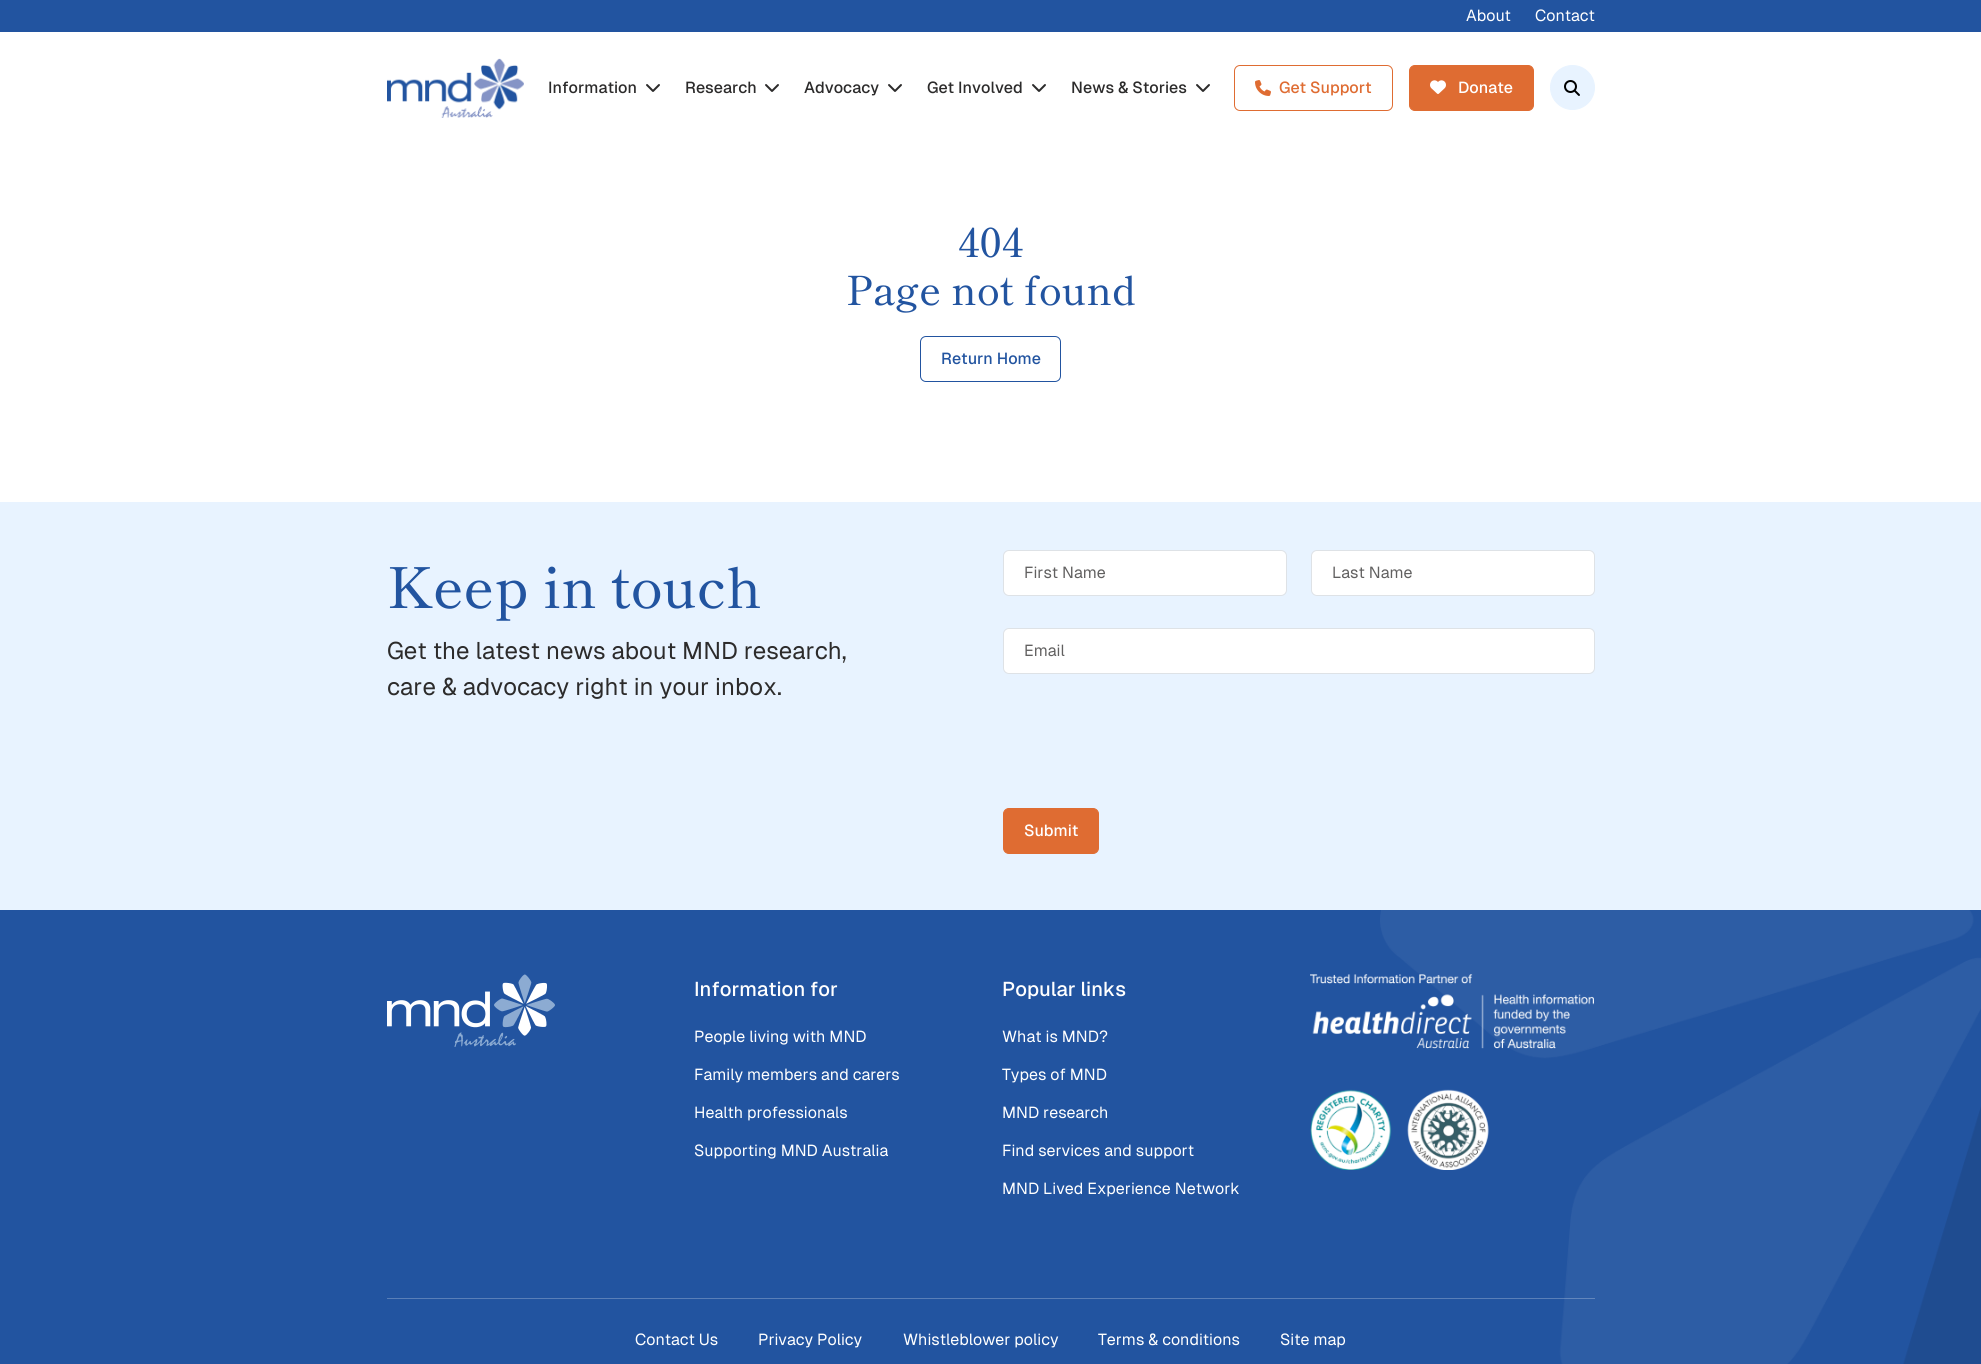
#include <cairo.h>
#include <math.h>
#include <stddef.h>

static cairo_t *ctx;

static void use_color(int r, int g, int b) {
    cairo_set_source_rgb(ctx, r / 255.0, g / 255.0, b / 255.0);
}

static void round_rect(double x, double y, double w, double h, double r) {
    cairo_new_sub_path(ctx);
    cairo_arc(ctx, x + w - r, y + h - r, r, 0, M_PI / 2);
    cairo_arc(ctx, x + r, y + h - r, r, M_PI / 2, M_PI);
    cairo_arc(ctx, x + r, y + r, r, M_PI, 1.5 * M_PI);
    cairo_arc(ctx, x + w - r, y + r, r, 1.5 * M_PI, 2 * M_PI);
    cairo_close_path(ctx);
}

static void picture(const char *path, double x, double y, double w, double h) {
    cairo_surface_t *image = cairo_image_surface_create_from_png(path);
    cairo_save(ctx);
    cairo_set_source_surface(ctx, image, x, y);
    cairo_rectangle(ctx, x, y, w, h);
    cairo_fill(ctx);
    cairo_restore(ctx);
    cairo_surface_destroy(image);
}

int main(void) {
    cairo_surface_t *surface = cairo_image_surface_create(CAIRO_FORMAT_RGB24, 1981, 1364);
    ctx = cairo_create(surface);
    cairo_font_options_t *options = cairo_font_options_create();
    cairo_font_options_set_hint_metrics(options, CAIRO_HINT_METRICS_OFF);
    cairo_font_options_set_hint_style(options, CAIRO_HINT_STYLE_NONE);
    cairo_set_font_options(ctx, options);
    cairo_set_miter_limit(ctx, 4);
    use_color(255, 255, 255);
    cairo_paint(ctx);
    use_color(34, 84, 160);
    cairo_rectangle(ctx, 0, 0, 1981, 32);
    cairo_fill(ctx);
    cairo_select_font_face(ctx, "Geist", CAIRO_FONT_SLANT_NORMAL, CAIRO_FONT_WEIGHT_NORMAL);
    cairo_set_font_size(ctx, 16);
    use_color(255, 255, 255);
    cairo_move_to(ctx, 1466, 21);
    cairo_show_text(ctx, "About");
    cairo_move_to(ctx, 1535, 21);
    cairo_show_text(ctx, "Contact");
    picture("img1.png", 387, 58, 137, 60);
    cairo_select_font_face(ctx, "Geist Medium", CAIRO_FONT_SLANT_NORMAL, CAIRO_FONT_WEIGHT_NORMAL);
    use_color(44, 43, 43);
    cairo_move_to(ctx, 548, 93);
    cairo_show_text(ctx, "Information");
    picture("img2.png", 646, 84, 14, 8);
    cairo_move_to(ctx, 685, 93);
    cairo_show_text(ctx, "Research");
    picture("img2.png", 765, 84, 14, 8);
    cairo_move_to(ctx, 804, 93);
    cairo_show_text(ctx, "Advocacy");
    picture("img2.png", 888, 84, 14, 8);
    cairo_move_to(ctx, 927, 93);
    cairo_show_text(ctx, "Get Involved");
    picture("img2.png", 1032, 84, 14, 8);
    cairo_move_to(ctx, 1071, 93);
    cairo_show_text(ctx, "News & Stories");
    picture("img2.png", 1196, 84, 14, 8);
    round_rect(1234.5, 65.5, 158, 45, 5.5);
    use_color(223, 108, 50);
    cairo_set_line_width(ctx, 1);
    cairo_stroke(ctx);
    picture("img3.png", 1255, 80, 16, 16);
    cairo_move_to(ctx, 1279, 93);
    cairo_show_text(ctx, "Get Support");
    round_rect(1409.5, 65.5, 124, 45, 5.5);
    cairo_fill_preserve(ctx);
    cairo_stroke(ctx);
    picture("img4.png", 1430, 80, 16, 14);
    use_color(255, 255, 255);
    cairo_move_to(ctx, 1458, 93);
    cairo_show_text(ctx, "Donate");
    use_color(232, 243, 255);
    cairo_new_path(ctx);
    cairo_arc(ctx, 1572.5, 87.5, 22, 0, 2 * M_PI);
    cairo_fill_preserve(ctx);
    cairo_stroke(ctx);
    picture("img5.png", 1564, 80, 16, 16);
    cairo_select_font_face(ctx, "Shippori Mincho Medium", CAIRO_FONT_SLANT_NORMAL, CAIRO_FONT_WEIGHT_NORMAL);
    cairo_set_font_size(ctx, 40);
    use_color(34, 84, 160);
    cairo_move_to(ctx, 958, 257);
    cairo_show_text(ctx, "404");
    cairo_move_to(ctx, 846, 305);
    cairo_show_text(ctx, "Page not found");
    round_rect(920.5, 336.5, 140, 45, 5.5);
    cairo_stroke(ctx);
    cairo_select_font_face(ctx, "Geist Medium", CAIRO_FONT_SLANT_NORMAL, CAIRO_FONT_WEIGHT_NORMAL);
    cairo_set_font_size(ctx, 16);
    cairo_move_to(ctx, 941, 364);
    cairo_show_text(ctx, "Return Home");
    use_color(232, 243, 255);
    cairo_rectangle(ctx, 0, 502, 1981, 408);
    cairo_fill(ctx);
    cairo_select_font_face(ctx, "Shippori Mincho Medium", CAIRO_FONT_SLANT_NORMAL, CAIRO_FONT_WEIGHT_NORMAL);
    cairo_set_font_size(ctx, 56);
    use_color(34, 84, 160);
    cairo_move_to(ctx, 387, 608);
    cairo_show_text(ctx, "Keep in touch");
    cairo_select_font_face(ctx, "Geist", CAIRO_FONT_SLANT_NORMAL, CAIRO_FONT_WEIGHT_NORMAL);
    cairo_set_font_size(ctx, 24);
    use_color(44, 43, 43);
    cairo_move_to(ctx, 387, 659);
    cairo_show_text(ctx, "Get the latest news about MND research,");
    cairo_move_to(ctx, 387, 695);
    cairo_show_text(ctx, "care & advocacy right in your inbox.");
    use_color(255, 255, 255);
    round_rect(1003.5, 550.5, 283, 45, 5.5);
    cairo_fill_preserve(ctx);
    use_color(222, 226, 230);
    cairo_stroke(ctx);
    cairo_set_font_size(ctx, 16);
    use_color(97, 96, 96);
    cairo_move_to(ctx, 1024, 578);
    cairo_show_text(ctx, "First Name");
    use_color(255, 255, 255);
    round_rect(1311.5, 550.5, 283, 45, 5.5);
    cairo_fill_preserve(ctx);
    use_color(222, 226, 230);
    cairo_stroke(ctx);
    use_color(97, 96, 96);
    cairo_move_to(ctx, 1332, 578);
    cairo_show_text(ctx, "Last Name");
    use_color(255, 255, 255);
    round_rect(1003.5, 628.5, 591, 45, 5.5);
    cairo_fill_preserve(ctx);
    use_color(222, 226, 230);
    cairo_stroke(ctx);
    use_color(97, 96, 96);
    cairo_move_to(ctx, 1024, 656);
    cairo_show_text(ctx, "Email");
    use_color(223, 108, 50);
    round_rect(1003.5, 808.5, 95, 45, 5.5);
    cairo_fill_preserve(ctx);
    cairo_stroke(ctx);
    cairo_select_font_face(ctx, "Geist Medium", CAIRO_FONT_SLANT_NORMAL, CAIRO_FONT_WEIGHT_NORMAL);
    use_color(255, 255, 255);
    cairo_move_to(ctx, 1024, 836);
    cairo_show_text(ctx, "Submit");
    use_color(34, 84, 160);
    cairo_rectangle(ctx, 0, 910, 1981, 454);
    cairo_fill(ctx);
    picture("img6.png", 1380, 910, 601, 454);
    picture("img7.png", 387, 974, 168, 73);
    cairo_set_font_size(ctx, 20);
    use_color(255, 255, 255);
    cairo_move_to(ctx, 694, 996);
    cairo_show_text(ctx, "Information for");
    cairo_select_font_face(ctx, "Geist", CAIRO_FONT_SLANT_NORMAL, CAIRO_FONT_WEIGHT_NORMAL);
    cairo_set_font_size(ctx, 16);
    cairo_move_to(ctx, 694, 1042);
    cairo_show_text(ctx, "People living with MND");
    cairo_move_to(ctx, 694, 1080);
    cairo_show_text(ctx, "Family members and carers");
    cairo_move_to(ctx, 694, 1118);
    cairo_show_text(ctx, "Health professionals");
    cairo_move_to(ctx, 694, 1156);
    cairo_show_text(ctx, "Supporting MND Australia");
    cairo_select_font_face(ctx, "Geist Medium", CAIRO_FONT_SLANT_NORMAL, CAIRO_FONT_WEIGHT_NORMAL);
    cairo_set_font_size(ctx, 20);
    cairo_move_to(ctx, 1002, 996);
    cairo_show_text(ctx, "Popular links");
    cairo_select_font_face(ctx, "Geist", CAIRO_FONT_SLANT_NORMAL, CAIRO_FONT_WEIGHT_NORMAL);
    cairo_set_font_size(ctx, 16);
    cairo_move_to(ctx, 1002, 1042);
    cairo_show_text(ctx, "What is MND?");
    cairo_move_to(ctx, 1002, 1080);
    cairo_show_text(ctx, "Types of MND");
    cairo_move_to(ctx, 1002, 1118);
    cairo_show_text(ctx, "MND research");
    cairo_move_to(ctx, 1002, 1156);
    cairo_show_text(ctx, "Find services and support");
    cairo_move_to(ctx, 1002, 1194);
    cairo_show_text(ctx, "MND Lived Experience Network");
    picture("img8.png", 1310, 974, 284, 196);
    cairo_set_source_rgba(ctx, 1, 1, 1, 0.25);
    cairo_rectangle(ctx, 387, 1298, 1208, 1);
    cairo_fill(ctx);
    use_color(255, 255, 255);
    cairo_move_to(ctx, 635, 1345);
    cairo_show_text(ctx, "Contact Us");
    cairo_move_to(ctx, 758, 1345);
    cairo_show_text(ctx, "Privacy Policy");
    cairo_move_to(ctx, 903, 1345);
    cairo_show_text(ctx, "Whistleblower policy");
    cairo_move_to(ctx, 1098, 1345);
    cairo_show_text(ctx, "Terms & conditions");
    cairo_move_to(ctx, 1280, 1345);
    cairo_show_text(ctx, "Site map");
    cairo_surface_write_to_png(surface, "result.png");
    cairo_font_options_destroy(options);
    cairo_destroy(ctx);
    cairo_surface_destroy(surface);
    return 0;
}
